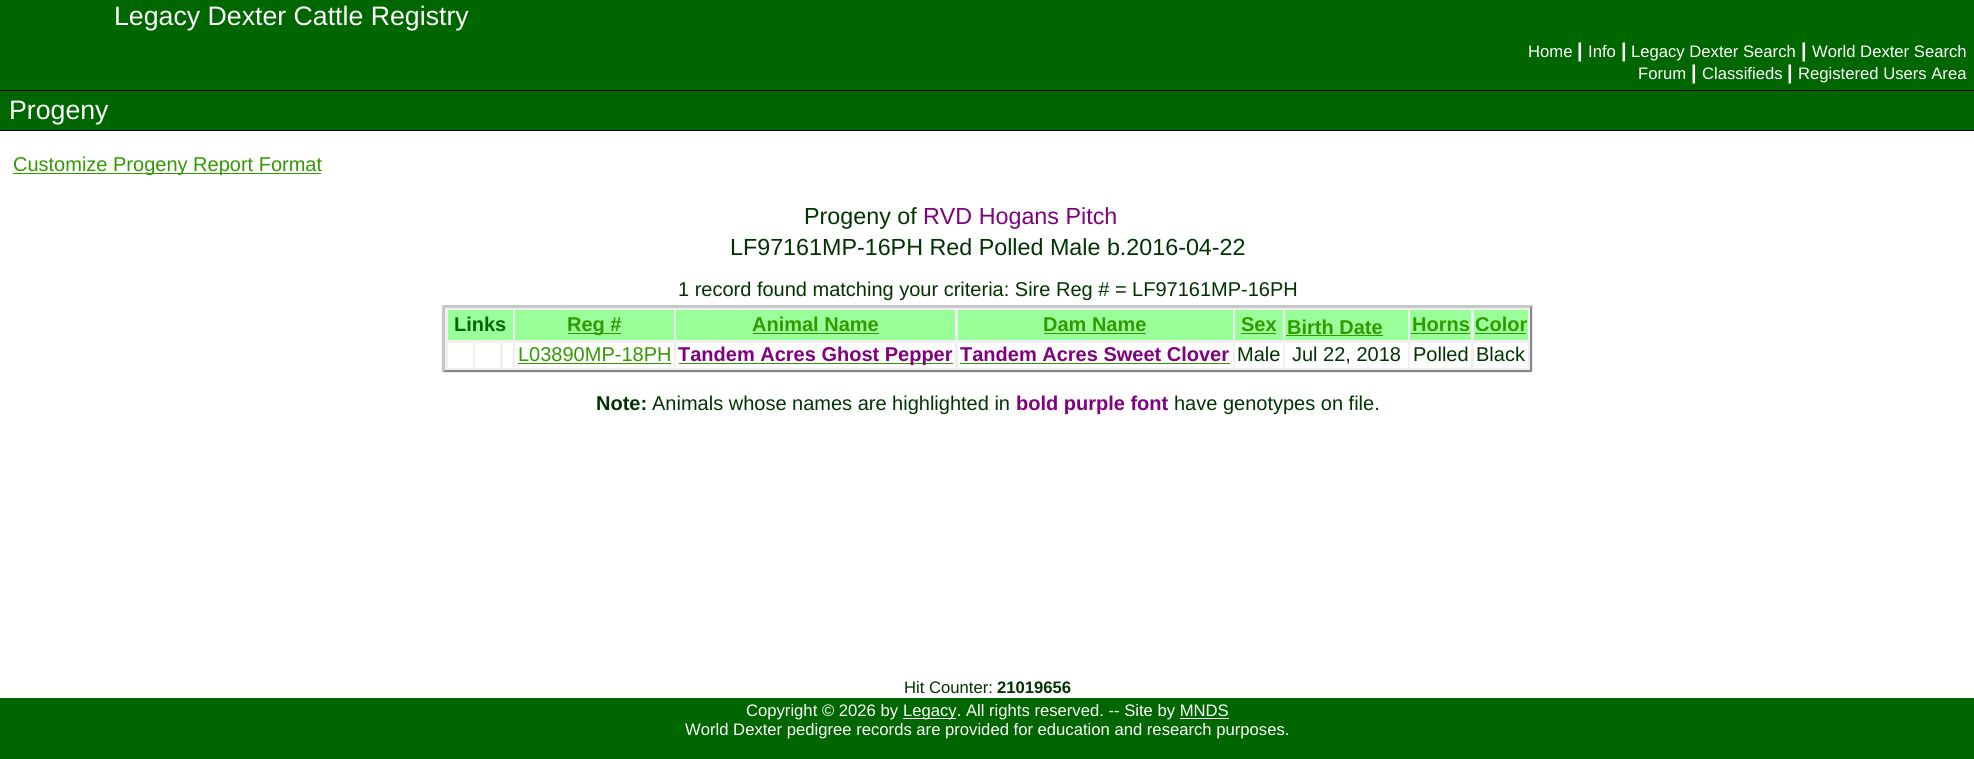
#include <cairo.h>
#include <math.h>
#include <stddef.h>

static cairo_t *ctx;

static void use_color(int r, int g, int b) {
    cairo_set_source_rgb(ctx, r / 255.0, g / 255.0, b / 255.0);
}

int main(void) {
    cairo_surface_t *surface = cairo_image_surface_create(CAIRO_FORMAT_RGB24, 1974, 759);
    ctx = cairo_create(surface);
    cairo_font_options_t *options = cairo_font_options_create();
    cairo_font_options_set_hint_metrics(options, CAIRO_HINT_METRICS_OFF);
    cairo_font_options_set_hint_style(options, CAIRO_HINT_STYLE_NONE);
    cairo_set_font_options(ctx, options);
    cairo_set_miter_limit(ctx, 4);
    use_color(255, 255, 255);
    cairo_paint(ctx);
    use_color(0, 102, 0);
    cairo_rectangle(ctx, 0, 0, 99, 90);
    cairo_fill(ctx);
    cairo_rectangle(ctx, 99, 0, 1875, 90);
    cairo_fill(ctx);
    cairo_select_font_face(ctx, "Liberation Sans", CAIRO_FONT_SLANT_NORMAL, CAIRO_FONT_WEIGHT_NORMAL);
    cairo_set_font_size(ctx, 26.7);
    use_color(255, 255, 255);
    cairo_move_to(ctx, 114, 25);
    cairo_show_text(ctx, "Legacy Dexter Cattle Registry");
    use_color(0, 0, 0);
    cairo_rectangle(ctx, 0, 90, 1974, 1);
    cairo_fill(ctx);
    cairo_set_font_size(ctx, 16.65);
    use_color(255, 255, 255);
    cairo_move_to(ctx, 1528, 57);
    cairo_show_text(ctx, "Home");
    cairo_select_font_face(ctx, "Liberation Sans", CAIRO_FONT_SLANT_NORMAL, CAIRO_FONT_WEIGHT_BOLD);
    cairo_set_font_size(ctx, 20);
    cairo_move_to(ctx, 1577, 57);
    cairo_show_text(ctx, "|");
    cairo_select_font_face(ctx, "Liberation Sans", CAIRO_FONT_SLANT_NORMAL, CAIRO_FONT_WEIGHT_NORMAL);
    cairo_set_font_size(ctx, 16.65);
    cairo_move_to(ctx, 1588, 57);
    cairo_show_text(ctx, "Info");
    cairo_select_font_face(ctx, "Liberation Sans", CAIRO_FONT_SLANT_NORMAL, CAIRO_FONT_WEIGHT_BOLD);
    cairo_set_font_size(ctx, 20);
    cairo_move_to(ctx, 1621, 57);
    cairo_show_text(ctx, "|");
    cairo_select_font_face(ctx, "Liberation Sans", CAIRO_FONT_SLANT_NORMAL, CAIRO_FONT_WEIGHT_NORMAL);
    cairo_set_font_size(ctx, 16.65);
    cairo_move_to(ctx, 1631, 57);
    cairo_show_text(ctx, "Legacy Dexter Search");
    cairo_select_font_face(ctx, "Liberation Sans", CAIRO_FONT_SLANT_NORMAL, CAIRO_FONT_WEIGHT_BOLD);
    cairo_set_font_size(ctx, 20);
    cairo_move_to(ctx, 1801, 57);
    cairo_show_text(ctx, "|");
    cairo_select_font_face(ctx, "Liberation Sans", CAIRO_FONT_SLANT_NORMAL, CAIRO_FONT_WEIGHT_NORMAL);
    cairo_set_font_size(ctx, 16.65);
    cairo_move_to(ctx, 1812, 57);
    cairo_show_text(ctx, "World Dexter Search");
    cairo_move_to(ctx, 1638, 79);
    cairo_show_text(ctx, "Forum");
    cairo_select_font_face(ctx, "Liberation Sans", CAIRO_FONT_SLANT_NORMAL, CAIRO_FONT_WEIGHT_BOLD);
    cairo_set_font_size(ctx, 20);
    cairo_move_to(ctx, 1691, 79);
    cairo_show_text(ctx, "|");
    cairo_select_font_face(ctx, "Liberation Sans", CAIRO_FONT_SLANT_NORMAL, CAIRO_FONT_WEIGHT_NORMAL);
    cairo_set_font_size(ctx, 16.65);
    cairo_move_to(ctx, 1702, 79);
    cairo_show_text(ctx, "Classifieds");
    cairo_select_font_face(ctx, "Liberation Sans", CAIRO_FONT_SLANT_NORMAL, CAIRO_FONT_WEIGHT_BOLD);
    cairo_set_font_size(ctx, 20);
    cairo_move_to(ctx, 1787, 79);
    cairo_show_text(ctx, "|");
    cairo_select_font_face(ctx, "Liberation Sans", CAIRO_FONT_SLANT_NORMAL, CAIRO_FONT_WEIGHT_NORMAL);
    cairo_set_font_size(ctx, 16.65);
    cairo_move_to(ctx, 1798, 79);
    cairo_show_text(ctx, "Registered Users Area");
    use_color(0, 102, 0);
    cairo_rectangle(ctx, 0, 91, 1974, 39);
    cairo_fill(ctx);
    use_color(0, 0, 0);
    cairo_rectangle(ctx, 0, 130, 1974, 1);
    cairo_fill(ctx);
    cairo_set_font_size(ctx, 26.7);
    use_color(255, 255, 255);
    cairo_move_to(ctx, 9, 119);
    cairo_show_text(ctx, "Progeny");
    use_color(51, 153, 0);
    cairo_rectangle(ctx, 13, 173, 308, 1);
    cairo_fill(ctx);
    cairo_set_font_size(ctx, 20);
    cairo_move_to(ctx, 13, 171);
    cairo_show_text(ctx, "Customize Progeny Report Format");
    cairo_set_font_size(ctx, 23.3);
    use_color(0, 51, 0);
    cairo_move_to(ctx, 804, 224);
    cairo_show_text(ctx, "Progeny of");
    use_color(128, 0, 128);
    cairo_move_to(ctx, 923, 224);
    cairo_show_text(ctx, "RVD Hogans Pitch");
    use_color(0, 51, 0);
    cairo_move_to(ctx, 730, 255);
    cairo_show_text(ctx, "LF97161MP-16PH Red Polled Male b.2016-04-22");
    cairo_set_font_size(ctx, 20);
    cairo_move_to(ctx, 678, 296);
    cairo_show_text(ctx, "1 record found matching your criteria: Sire Reg # = LF97161MP-16PH");
    use_color(240, 240, 240);
    cairo_rectangle(ctx, 443, 305, 1090, 68);
    cairo_fill(ctx);
    use_color(200, 200, 200);
    cairo_new_path(ctx);
    cairo_move_to(ctx, 442, 305);
    cairo_line_to(ctx, 1532, 305);
    cairo_line_to(ctx, 1530, 308);
    cairo_line_to(ctx, 445, 308);
    cairo_close_path(ctx);
    cairo_fill(ctx);
    use_color(133, 133, 133);
    cairo_new_path(ctx);
    cairo_move_to(ctx, 1532, 305);
    cairo_line_to(ctx, 1532, 372);
    cairo_line_to(ctx, 1530, 370);
    cairo_line_to(ctx, 1530, 308);
    cairo_close_path(ctx);
    cairo_fill(ctx);
    cairo_new_path(ctx);
    cairo_move_to(ctx, 1532, 372);
    cairo_line_to(ctx, 442, 372);
    cairo_line_to(ctx, 445, 370);
    cairo_line_to(ctx, 1530, 370);
    cairo_close_path(ctx);
    cairo_fill(ctx);
    use_color(200, 200, 200);
    cairo_new_path(ctx);
    cairo_move_to(ctx, 442, 372);
    cairo_line_to(ctx, 442, 305);
    cairo_line_to(ctx, 445, 308);
    cairo_line_to(ctx, 445, 370);
    cairo_close_path(ctx);
    cairo_fill(ctx);
    use_color(153, 255, 153);
    cairo_rectangle(ctx, 448, 310, 65, 30);
    cairo_fill(ctx);
    cairo_select_font_face(ctx, "Liberation Sans", CAIRO_FONT_SLANT_NORMAL, CAIRO_FONT_WEIGHT_BOLD);
    use_color(0, 102, 0);
    cairo_move_to(ctx, 454, 331);
    cairo_show_text(ctx, "Links");
    use_color(153, 255, 153);
    cairo_rectangle(ctx, 515, 310, 159, 30);
    cairo_fill(ctx);
    use_color(51, 153, 0);
    cairo_rectangle(ctx, 568, 333, 53, 1);
    cairo_fill(ctx);
    cairo_move_to(ctx, 567, 331);
    cairo_show_text(ctx, "Reg #");
    use_color(153, 255, 153);
    cairo_rectangle(ctx, 676, 310, 279, 30);
    cairo_fill(ctx);
    use_color(51, 153, 0);
    cairo_move_to(ctx, 752, 331);
    cairo_show_text(ctx, "Animal Name");
    cairo_rectangle(ctx, 753, 333, 126, 1);
    cairo_fill(ctx);
    use_color(153, 255, 153);
    cairo_rectangle(ctx, 958, 310, 275, 30);
    cairo_fill(ctx);
    use_color(51, 153, 0);
    cairo_move_to(ctx, 1043, 331);
    cairo_show_text(ctx, "Dam Name");
    cairo_rectangle(ctx, 1044, 333, 102, 1);
    cairo_fill(ctx);
    use_color(153, 255, 153);
    cairo_rectangle(ctx, 1235, 310, 48, 30);
    cairo_fill(ctx);
    use_color(51, 153, 0);
    cairo_move_to(ctx, 1241, 331);
    cairo_show_text(ctx, "Sex");
    cairo_rectangle(ctx, 1241, 333, 35, 1);
    cairo_fill(ctx);
    use_color(153, 255, 153);
    cairo_rectangle(ctx, 1285, 310, 123, 30);
    cairo_fill(ctx);
    use_color(51, 153, 0);
    cairo_move_to(ctx, 1287, 334);
    cairo_show_text(ctx, "Birth Date");
    cairo_rectangle(ctx, 1286, 335, 97, 1);
    cairo_fill(ctx);
    use_color(153, 255, 153);
    cairo_rectangle(ctx, 1410, 310, 61, 30);
    cairo_fill(ctx);
    use_color(51, 153, 0);
    cairo_move_to(ctx, 1412, 331);
    cairo_show_text(ctx, "Horns");
    cairo_rectangle(ctx, 1411, 333, 59, 1);
    cairo_fill(ctx);
    use_color(153, 255, 153);
    cairo_rectangle(ctx, 1474, 310, 54, 30);
    cairo_fill(ctx);
    use_color(51, 153, 0);
    cairo_move_to(ctx, 1475, 331);
    cairo_show_text(ctx, "Color");
    cairo_rectangle(ctx, 1475, 333, 51, 1);
    cairo_fill(ctx);
    use_color(255, 255, 255);
    cairo_rectangle(ctx, 448, 343, 25, 25);
    cairo_fill(ctx);
    cairo_rectangle(ctx, 475, 343, 25, 25);
    cairo_fill(ctx);
    cairo_rectangle(ctx, 503, 343, 10, 25);
    cairo_fill(ctx);
    cairo_rectangle(ctx, 515, 343, 159, 25);
    cairo_fill(ctx);
    cairo_select_font_face(ctx, "Liberation Sans", CAIRO_FONT_SLANT_NORMAL, CAIRO_FONT_WEIGHT_NORMAL);
    use_color(51, 153, 0);
    cairo_move_to(ctx, 518, 361);
    cairo_show_text(ctx, "L03890MP-18PH");
    cairo_rectangle(ctx, 518, 363, 153, 1);
    cairo_fill(ctx);
    use_color(255, 255, 255);
    cairo_rectangle(ctx, 676, 343, 279, 25);
    cairo_fill(ctx);
    use_color(51, 153, 0);
    cairo_rectangle(ctx, 679, 363, 274, 1);
    cairo_fill(ctx);
    cairo_select_font_face(ctx, "Liberation Sans", CAIRO_FONT_SLANT_NORMAL, CAIRO_FONT_WEIGHT_BOLD);
    use_color(128, 0, 128);
    cairo_move_to(ctx, 678, 361);
    cairo_show_text(ctx, "Tandem Acres Ghost Pepper");
    use_color(255, 255, 255);
    cairo_rectangle(ctx, 958, 343, 275, 25);
    cairo_fill(ctx);
    use_color(128, 0, 128);
    cairo_move_to(ctx, 960, 361);
    cairo_show_text(ctx, "Tandem Acres Sweet Clover");
    use_color(51, 153, 0);
    cairo_rectangle(ctx, 960, 363, 270, 1);
    cairo_fill(ctx);
    use_color(255, 255, 255);
    cairo_rectangle(ctx, 1235, 343, 48, 25);
    cairo_fill(ctx);
    cairo_select_font_face(ctx, "Liberation Sans", CAIRO_FONT_SLANT_NORMAL, CAIRO_FONT_WEIGHT_NORMAL);
    use_color(0, 51, 0);
    cairo_move_to(ctx, 1237, 361);
    cairo_show_text(ctx, "Male");
    use_color(255, 255, 255);
    cairo_rectangle(ctx, 1285, 343, 123, 25);
    cairo_fill(ctx);
    use_color(0, 51, 0);
    cairo_move_to(ctx, 1292, 361);
    cairo_show_text(ctx, "Jul 22, 2018");
    use_color(255, 255, 255);
    cairo_rectangle(ctx, 1410, 343, 61, 25);
    cairo_fill(ctx);
    use_color(0, 51, 0);
    cairo_move_to(ctx, 1413, 361);
    cairo_show_text(ctx, "Polled");
    use_color(255, 255, 255);
    cairo_rectangle(ctx, 1474, 343, 54, 25);
    cairo_fill(ctx);
    use_color(0, 51, 0);
    cairo_move_to(ctx, 1476, 361);
    cairo_show_text(ctx, "Black");
    cairo_select_font_face(ctx, "Liberation Sans", CAIRO_FONT_SLANT_NORMAL, CAIRO_FONT_WEIGHT_BOLD);
    cairo_move_to(ctx, 596, 410);
    cairo_show_text(ctx, "Note:");
    cairo_select_font_face(ctx, "Liberation Sans", CAIRO_FONT_SLANT_NORMAL, CAIRO_FONT_WEIGHT_NORMAL);
    cairo_move_to(ctx, 652, 410);
    cairo_show_text(ctx, "Animals whose names are highlighted in");
    cairo_select_font_face(ctx, "Liberation Sans", CAIRO_FONT_SLANT_NORMAL, CAIRO_FONT_WEIGHT_BOLD);
    use_color(128, 0, 128);
    cairo_move_to(ctx, 1016, 410);
    cairo_show_text(ctx, "bold purple font");
    cairo_select_font_face(ctx, "Liberation Sans", CAIRO_FONT_SLANT_NORMAL, CAIRO_FONT_WEIGHT_NORMAL);
    use_color(0, 51, 0);
    cairo_move_to(ctx, 1174, 410);
    cairo_show_text(ctx, "have genotypes on file.");
    cairo_set_font_size(ctx, 16.65);
    cairo_move_to(ctx, 904, 693);
    cairo_show_text(ctx, "Hit Counter:");
    cairo_select_font_face(ctx, "Liberation Sans", CAIRO_FONT_SLANT_NORMAL, CAIRO_FONT_WEIGHT_BOLD);
    cairo_move_to(ctx, 997, 693);
    cairo_show_text(ctx, "21019656");
    use_color(0, 102, 0);
    cairo_rectangle(ctx, 0, 698, 1974, 61);
    cairo_fill(ctx);
    cairo_select_font_face(ctx, "Liberation Sans", CAIRO_FONT_SLANT_NORMAL, CAIRO_FONT_WEIGHT_NORMAL);
    use_color(255, 255, 255);
    cairo_move_to(ctx, 746, 716);
    cairo_show_text(ctx, "Copyright © 2026 by");
    cairo_rectangle(ctx, 903, 718, 53, 1);
    cairo_fill(ctx);
    cairo_move_to(ctx, 903, 716);
    cairo_show_text(ctx, "Legacy. All rights reserved. -- Site by MNDS");
    cairo_move_to(ctx, 685, 735);
    cairo_show_text(ctx, "World Dexter pedigree records are provided for education and research purposes.");
    cairo_rectangle(ctx, 1180, 718, 49, 1);
    cairo_fill(ctx);
    cairo_surface_write_to_png(surface, "result.png");
    cairo_font_options_destroy(options);
    cairo_destroy(ctx);
    cairo_surface_destroy(surface);
    return 0;
}
